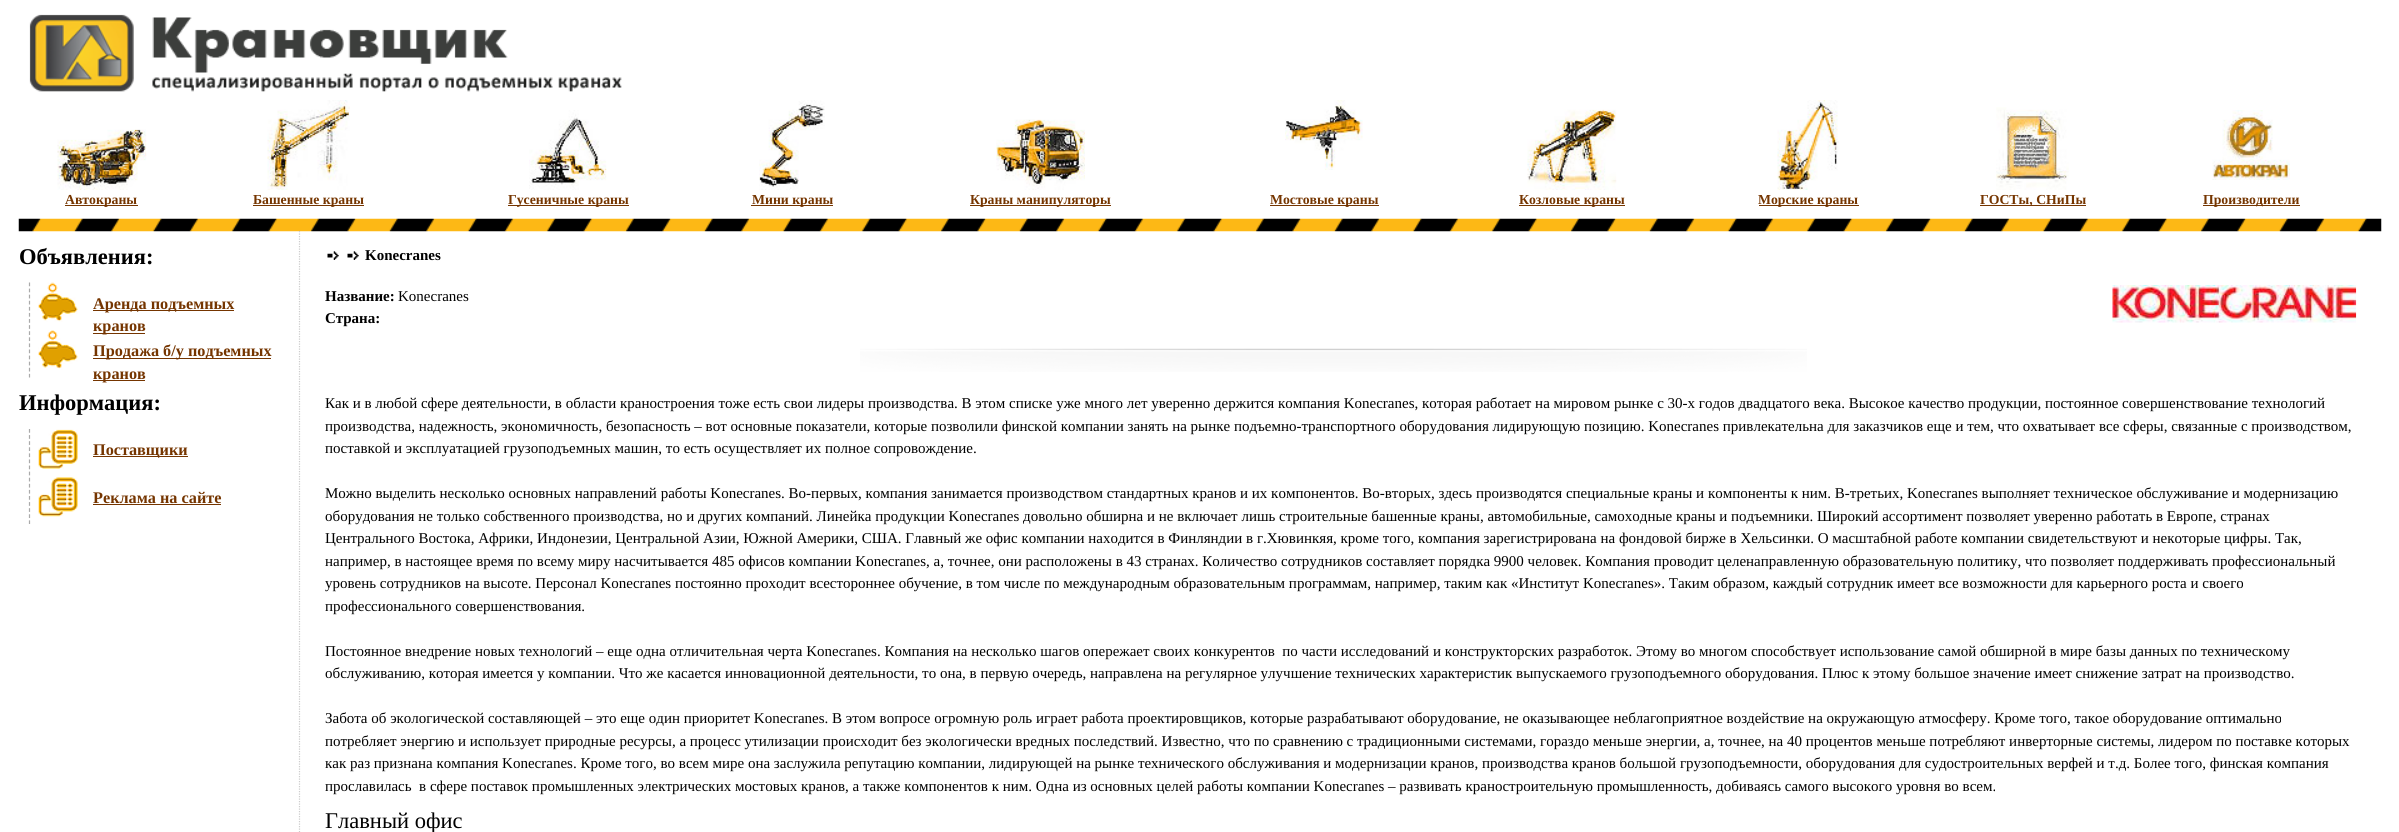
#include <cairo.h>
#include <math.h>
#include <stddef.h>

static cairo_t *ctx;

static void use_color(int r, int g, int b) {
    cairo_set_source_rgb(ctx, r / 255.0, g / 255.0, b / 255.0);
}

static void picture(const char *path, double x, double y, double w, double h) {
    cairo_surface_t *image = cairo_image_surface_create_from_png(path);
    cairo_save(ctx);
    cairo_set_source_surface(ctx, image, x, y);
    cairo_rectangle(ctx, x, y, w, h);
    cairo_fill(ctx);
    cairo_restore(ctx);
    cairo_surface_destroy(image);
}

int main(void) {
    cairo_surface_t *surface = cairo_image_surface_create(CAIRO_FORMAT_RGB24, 2399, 832);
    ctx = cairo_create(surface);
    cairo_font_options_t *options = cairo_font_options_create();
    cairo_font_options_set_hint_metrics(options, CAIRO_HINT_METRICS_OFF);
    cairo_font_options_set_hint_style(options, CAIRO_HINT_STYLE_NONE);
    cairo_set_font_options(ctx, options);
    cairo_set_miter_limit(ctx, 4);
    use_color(255, 255, 255);
    cairo_paint(ctx);
    picture("img1.png", 18, 218, 2364, 14);
    picture("img2.png", 29, 14, 593, 78);
    picture("img3.png", 57, 129, 90, 61);
    use_color(117, 53, 0);
    cairo_rectangle(ctx, 65, 205, 73, 1);
    cairo_fill(ctx);
    cairo_select_font_face(ctx, "Liberation Serif", CAIRO_FONT_SLANT_NORMAL, CAIRO_FONT_WEIGHT_BOLD);
    cairo_set_font_size(ctx, 13.75);
    cairo_move_to(ctx, 65, 204);
    cairo_show_text(ctx, "Автокраны");
    picture("img4.png", 267, 100, 83, 90);
    cairo_rectangle(ctx, 253, 205, 111, 1);
    cairo_fill(ctx);
    cairo_move_to(ctx, 253, 204);
    cairo_show_text(ctx, "Башенные краны");
    picture("img5.png", 529, 110, 78, 80);
    cairo_rectangle(ctx, 508, 205, 121, 1);
    cairo_fill(ctx);
    cairo_move_to(ctx, 508, 204);
    cairo_show_text(ctx, "Гусеничные краны");
    picture("img6.png", 759, 100, 66, 90);
    cairo_rectangle(ctx, 751, 205, 82, 1);
    cairo_fill(ctx);
    cairo_move_to(ctx, 752, 204);
    cairo_show_text(ctx, "Мини краны");
    picture("img7.png", 996, 119, 89, 71);
    cairo_rectangle(ctx, 970, 205, 141, 1);
    cairo_fill(ctx);
    cairo_move_to(ctx, 970, 204);
    cairo_show_text(ctx, "Краны манипуляторы");
    picture("img8.png", 1285, 100, 78, 70);
    cairo_rectangle(ctx, 1270, 205, 109, 1);
    cairo_fill(ctx);
    cairo_move_to(ctx, 1270, 204);
    cairo_show_text(ctx, "Мостовые краны");
    picture("img9.png", 1527, 109, 90, 81);
    cairo_rectangle(ctx, 1519, 205, 106, 1);
    cairo_fill(ctx);
    cairo_move_to(ctx, 1519, 204);
    cairo_show_text(ctx, "Козловые краны");
    picture("img10.png", 1777, 100, 62, 90);
    cairo_rectangle(ctx, 1759, 205, 100, 1);
    cairo_fill(ctx);
    cairo_move_to(ctx, 1758, 204);
    cairo_show_text(ctx, "Морские краны");
    picture("img11.png", 1996, 107, 73, 83);
    cairo_rectangle(ctx, 1980, 205, 106, 1);
    cairo_fill(ctx);
    cairo_move_to(ctx, 1980, 204);
    cairo_show_text(ctx, "ГОСТы, СНиПы");
    picture("img12.png", 2212, 110, 78, 70);
    cairo_rectangle(ctx, 2203, 205, 97, 1);
    cairo_fill(ctx);
    cairo_move_to(ctx, 2203, 204);
    cairo_show_text(ctx, "Производители");
    cairo_set_font_size(ctx, 22.5);
    use_color(0, 0, 0);
    cairo_move_to(ctx, 19, 264);
    cairo_show_text(ctx, "Объявления:");
    cairo_new_path(ctx);
    cairo_move_to(ctx, 29.5, 282.5);
    cairo_line_to(ctx, 29.5, 377.5);
    use_color(170, 170, 170);
    cairo_set_line_width(ctx, 1.2);
    cairo_set_dash(ctx, (double[]){3.75, 2.34}, 2, 0);
    cairo_stroke(ctx);
    picture("img13.png", 37, 282, 41, 40);
    use_color(117, 53, 0);
    cairo_rectangle(ctx, 93, 310, 141, 1);
    cairo_fill(ctx);
    cairo_set_font_size(ctx, 16.25);
    cairo_move_to(ctx, 93, 309);
    cairo_show_text(ctx, "Аренда подъемных");
    cairo_rectangle(ctx, 93, 333, 52, 1);
    cairo_fill(ctx);
    cairo_move_to(ctx, 93, 331);
    cairo_show_text(ctx, "кранов");
    picture("img14.png", 38, 330, 40, 40);
    cairo_rectangle(ctx, 93, 358, 178, 1);
    cairo_fill(ctx);
    cairo_move_to(ctx, 93, 356);
    cairo_show_text(ctx, "Продажа б/у подъемных");
    cairo_rectangle(ctx, 93, 380, 52, 1);
    cairo_fill(ctx);
    cairo_move_to(ctx, 93, 379);
    cairo_show_text(ctx, "кранов");
    cairo_set_font_size(ctx, 22.5);
    use_color(0, 0, 0);
    cairo_move_to(ctx, 19, 410);
    cairo_show_text(ctx, "Информация:");
    cairo_new_path(ctx);
    cairo_move_to(ctx, 29.5, 429);
    cairo_line_to(ctx, 29.5, 524);
    use_color(170, 170, 170);
    cairo_stroke(ctx);
    picture("img15.png", 38, 429, 40, 40);
    use_color(117, 53, 0);
    cairo_rectangle(ctx, 93, 456, 95, 1);
    cairo_fill(ctx);
    cairo_set_font_size(ctx, 16.25);
    cairo_move_to(ctx, 93, 455);
    cairo_show_text(ctx, "Поставщики");
    picture("img16.png", 38, 477, 40, 40);
    cairo_move_to(ctx, 93, 503);
    cairo_show_text(ctx, "Реклама на сайте");
    cairo_rectangle(ctx, 93, 504, 128, 1);
    cairo_fill(ctx);
    cairo_new_path(ctx);
    cairo_move_to(ctx, 299.5, 231);
    cairo_line_to(ctx, 299.5, 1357.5);
    use_color(204, 204, 204);
    cairo_set_dash(ctx, (double[]){1.25, 1.25}, 2, 0);
    cairo_stroke(ctx);
    picture("img17.png", 327, 251, 12, 9);
    picture("img17.png", 347, 251, 12, 9);
    cairo_set_font_size(ctx, 15);
    use_color(0, 0, 0);
    cairo_move_to(ctx, 365, 260);
    cairo_show_text(ctx, "Konecranes");
    cairo_move_to(ctx, 325, 301);
    cairo_show_text(ctx, "Название:");
    cairo_select_font_face(ctx, "Liberation Serif", CAIRO_FONT_SLANT_NORMAL, CAIRO_FONT_WEIGHT_NORMAL);
    cairo_move_to(ctx, 398, 301);
    cairo_show_text(ctx, "Konecranes");
    picture("img18.png", 2112, 285, 245, 38);
    cairo_select_font_face(ctx, "Liberation Serif", CAIRO_FONT_SLANT_NORMAL, CAIRO_FONT_WEIGHT_BOLD);
    cairo_move_to(ctx, 325, 323);
    cairo_show_text(ctx, "Страна:");
    picture("img19.png", 860, 348, 947, 24);
    cairo_select_font_face(ctx, "Liberation Serif", CAIRO_FONT_SLANT_NORMAL, CAIRO_FONT_WEIGHT_NORMAL);
    cairo_move_to(ctx, 325, 408);
    cairo_show_text(ctx, "Как и в любой сфере деятельности, в области краностроения тоже есть свои лидеры производства. В этом списке уже много лет уверенно держится компания Konecranes, которая работает на мировом рынке с 30-х годов двадцатого века. Высокое качество продукции, постоянное совершенствование технологий");
    cairo_move_to(ctx, 325, 431);
    cairo_show_text(ctx, "производства, надежность, экономичность, безопасность – вот основные показатели, которые позволили финской компании занять на рынке подъемно-транспортного оборудования лидирующую позицию. Konecranes привлекательна для заказчиков еще и тем, что охватывает все сферы, связанные с производством,");
    cairo_move_to(ctx, 325, 453);
    cairo_show_text(ctx, "поставкой и эксплуатацией грузоподъемных машин, то есть осуществляет их полное сопровождение.");
    cairo_move_to(ctx, 325, 498);
    cairo_show_text(ctx, "Можно выделить несколько основных направлений работы Konecranes. Во-первых, компания занимается производством стандартных кранов и их компонентов. Во-вторых, здесь производятся специальные краны и компоненты к ним. В-третьих, Konecranes выполняет техническое обслуживание и модернизацию");
    cairo_move_to(ctx, 325, 521);
    cairo_show_text(ctx, "оборудования не только собственного производства, но и других компаний. Линейка продукции Konecranes довольно обширна и не включает лишь строительные башенные краны, автомобильные, самоходные краны и подъемники. Широкий ассортимент позволяет уверенно работать в Европе, странах");
    cairo_move_to(ctx, 325, 543);
    cairo_show_text(ctx, "Центрального Востока, Африки, Индонезии, Центральной Азии, Южной Америки, США. Главный же офис компании находится в Финляндии в г.Хювинкяя, кроме того, компания зарегистрирована на фондовой бирже в Хельсинки. О масштабной работе компании свидетельствуют и некоторые цифры. Так,");
    cairo_move_to(ctx, 325, 566);
    cairo_show_text(ctx, "например, в настоящее время по всему миру насчитывается 485 офисов компании Konecranes, а, точнее, они расположены в 43 странах. Количество сотрудников составляет порядка 9900 человек. Компания проводит целенаправленную образовательную политику, что позволяет поддерживать профессиональный");
    cairo_move_to(ctx, 325, 588);
    cairo_show_text(ctx, "уровень сотрудников на высоте. Персонал Konecranes постоянно проходит всестороннее обучение, в том числе по международным образовательным программам, например, таким как «Институт Konecranes». Таким образом, каждый сотрудник имеет все возможности для карьерного роста и своего");
    cairo_move_to(ctx, 325, 611);
    cairo_show_text(ctx, "профессионального совершенствования.");
    cairo_move_to(ctx, 325, 656);
    cairo_show_text(ctx, "Постоянное внедрение новых технологий – еще одна отличительная черта Konecranes. Компания на несколько шагов опережает своих конкурентов  по части исследований и конструкторских разработок. Этому во многом способствует использование самой обширной в мире базы данных по техническому");
    cairo_move_to(ctx, 325, 678);
    cairo_show_text(ctx, "обслуживанию, которая имеется у компании. Что же касается инновационной деятельности, то она, в первую очередь, направлена на регулярное улучшение технических характеристик выпускаемого грузоподъемного оборудования. Плюс к этому большое значение имеет снижение затрат на производство.");
    cairo_move_to(ctx, 325, 723);
    cairo_show_text(ctx, "Забота об экологической составляющей – это еще один приоритет Konecranes. В этом вопросе огромную роль играет работа проектировщиков, которые разрабатывают оборудование, не оказывающее неблагоприятное воздействие на окружающую атмосферу. Кроме того, такое оборудование оптимально");
    cairo_move_to(ctx, 325, 746);
    cairo_show_text(ctx, "потребляет энергию и использует природные ресурсы, а процесс утилизации происходит без экологически вредных последствий. Известно, что по сравнению с традиционными системами, гораздо меньше энергии, а, точнее, на 40 процентов меньше потребляют инверторные системы, лидером по поставке которых");
    cairo_move_to(ctx, 325, 768);
    cairo_show_text(ctx, "как раз признана компания Konecranes. Кроме того, во всем мире она заслужила репутацию компании, лидирующей на рынке технического обслуживания и модернизации кранов, производства кранов большой грузоподъемности, оборудования для судостроительных верфей и т.д. Более того, финская компания");
    cairo_move_to(ctx, 325, 791);
    cairo_show_text(ctx, "прославилась  в сфере поставок промышленных электрических мостовых кранов, а также компонентов к ним. Одна из основных целей работы компании Konecranes – развивать краностроительную промышленность, добиваясь самого высокого уровня во всем.");
    cairo_set_font_size(ctx, 22.5);
    cairo_move_to(ctx, 325, 828);
    cairo_show_text(ctx, "Главный офис");
    cairo_surface_write_to_png(surface, "result.png");
    cairo_font_options_destroy(options);
    cairo_destroy(ctx);
    cairo_surface_destroy(surface);
    return 0;
}
